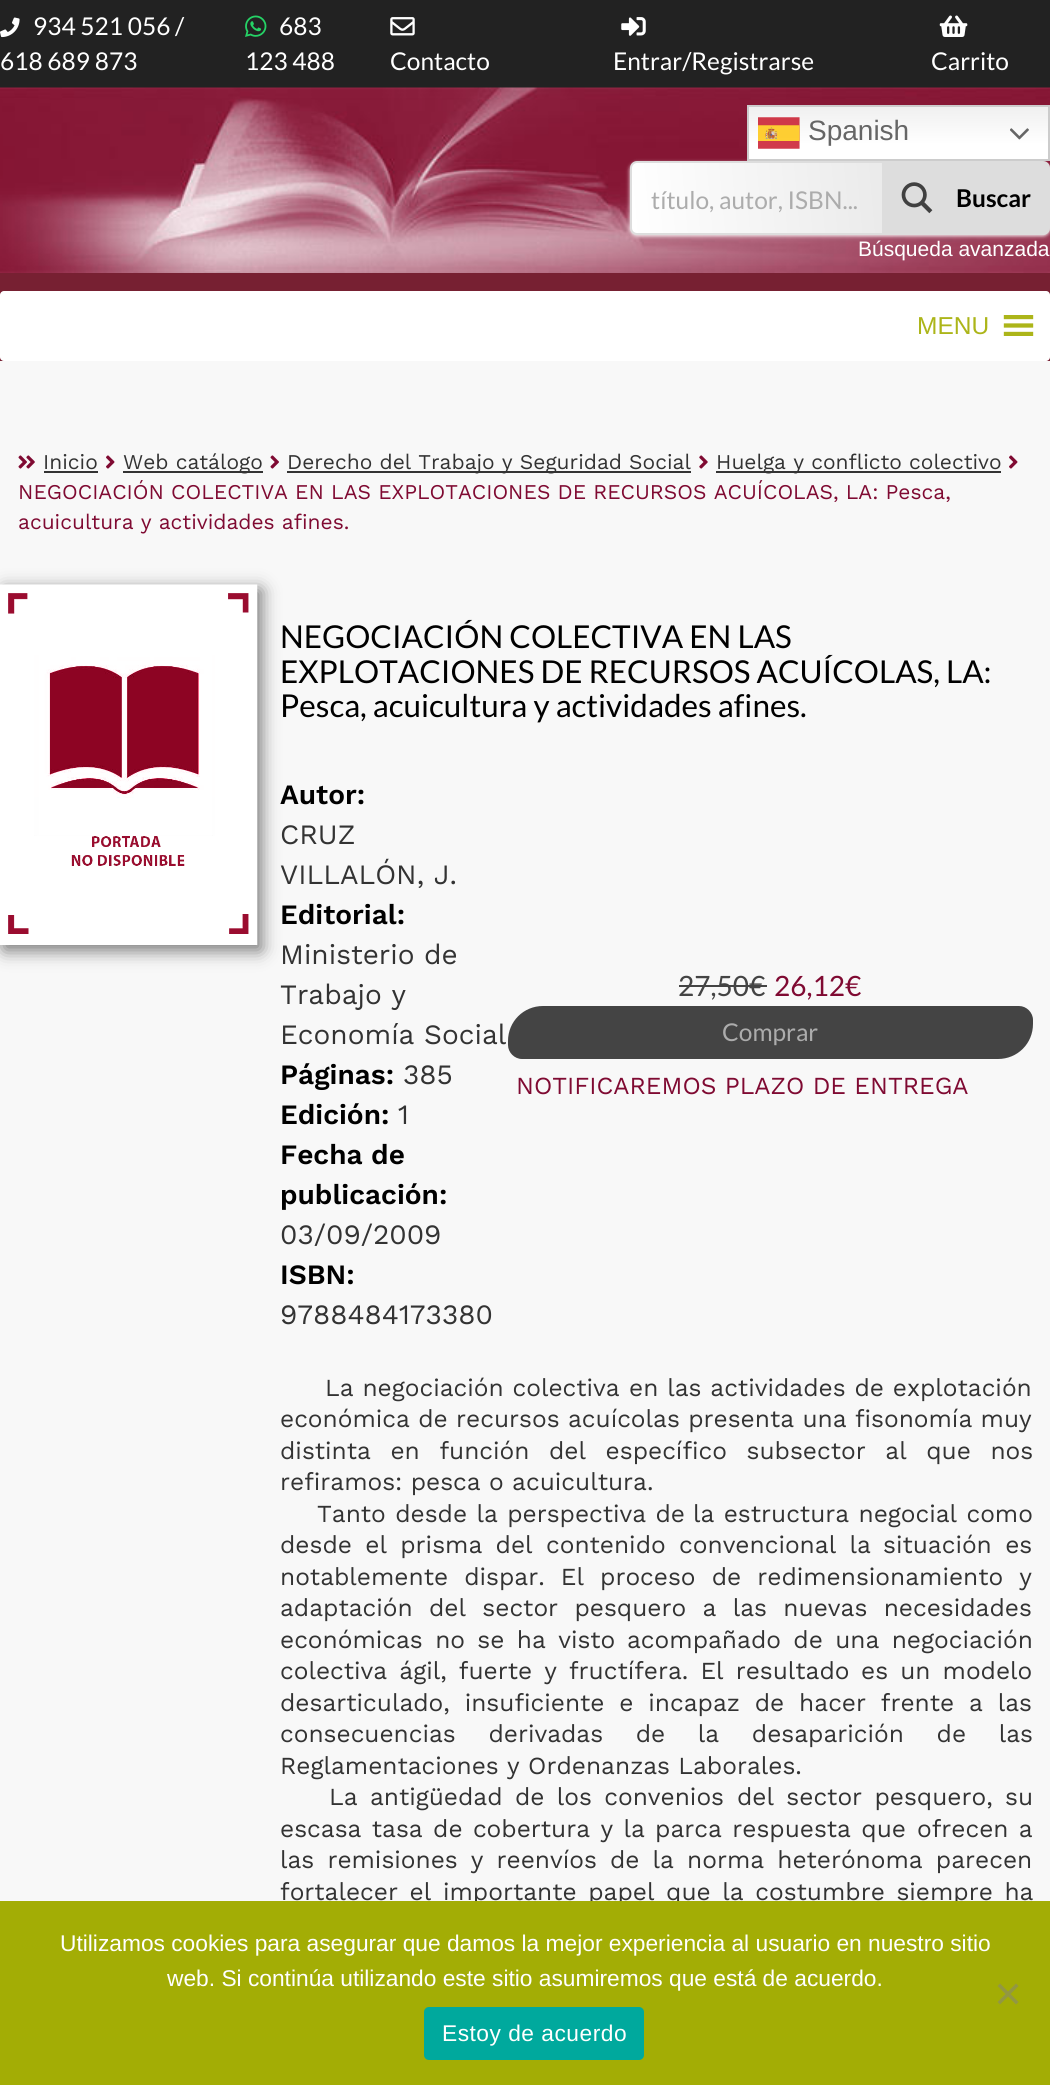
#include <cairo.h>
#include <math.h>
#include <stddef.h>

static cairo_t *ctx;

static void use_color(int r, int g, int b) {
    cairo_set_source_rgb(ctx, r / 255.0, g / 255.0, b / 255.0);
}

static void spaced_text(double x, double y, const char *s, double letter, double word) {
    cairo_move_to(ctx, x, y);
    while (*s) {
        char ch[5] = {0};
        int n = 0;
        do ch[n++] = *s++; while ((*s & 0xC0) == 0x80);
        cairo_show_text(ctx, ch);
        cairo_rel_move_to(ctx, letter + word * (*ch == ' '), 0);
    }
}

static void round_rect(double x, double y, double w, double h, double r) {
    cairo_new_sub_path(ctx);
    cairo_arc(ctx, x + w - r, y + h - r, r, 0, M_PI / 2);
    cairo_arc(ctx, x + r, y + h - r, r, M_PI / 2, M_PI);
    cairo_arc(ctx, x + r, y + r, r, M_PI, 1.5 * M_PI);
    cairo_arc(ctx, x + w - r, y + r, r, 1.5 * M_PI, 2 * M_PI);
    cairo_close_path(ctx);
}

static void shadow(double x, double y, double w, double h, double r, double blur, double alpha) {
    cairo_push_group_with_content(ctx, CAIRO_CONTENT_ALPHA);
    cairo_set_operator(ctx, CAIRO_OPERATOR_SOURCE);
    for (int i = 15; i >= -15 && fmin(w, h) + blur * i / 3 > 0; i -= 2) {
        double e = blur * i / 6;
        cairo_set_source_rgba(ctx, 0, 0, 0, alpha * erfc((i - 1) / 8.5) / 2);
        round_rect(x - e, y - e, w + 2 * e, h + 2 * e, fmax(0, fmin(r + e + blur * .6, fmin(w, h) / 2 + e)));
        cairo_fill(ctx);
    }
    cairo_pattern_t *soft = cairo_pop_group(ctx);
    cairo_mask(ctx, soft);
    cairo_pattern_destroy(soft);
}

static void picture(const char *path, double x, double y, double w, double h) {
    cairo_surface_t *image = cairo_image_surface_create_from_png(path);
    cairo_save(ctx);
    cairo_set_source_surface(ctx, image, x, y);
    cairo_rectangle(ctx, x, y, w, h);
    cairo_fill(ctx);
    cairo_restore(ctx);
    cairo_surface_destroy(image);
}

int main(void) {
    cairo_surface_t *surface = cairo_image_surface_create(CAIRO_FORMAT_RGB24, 1050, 2085);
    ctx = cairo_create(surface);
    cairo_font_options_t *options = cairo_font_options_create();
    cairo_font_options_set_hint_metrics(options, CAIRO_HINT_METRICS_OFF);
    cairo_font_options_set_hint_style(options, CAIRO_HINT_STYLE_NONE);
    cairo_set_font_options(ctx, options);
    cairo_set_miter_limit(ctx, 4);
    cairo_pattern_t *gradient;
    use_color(248, 248, 248);
    cairo_paint(ctx);
    use_color(119, 32, 50);
    cairo_rectangle(ctx, 0, 273, 1050, 88);
    cairo_fill(ctx);
    use_color(34, 34, 34);
    cairo_rectangle(ctx, 0, 0, 1050, 88);
    cairo_fill(ctx);
    picture("img1.png", 0, 17, 20, 21);
    cairo_select_font_face(ctx, "Lato", CAIRO_FONT_SLANT_NORMAL, CAIRO_FONT_WEIGHT_NORMAL);
    cairo_set_font_size(ctx, 24.5);
    use_color(255, 255, 255);
    cairo_move_to(ctx, 33, 35);
    cairo_show_text(ctx, "934 521 056 /");
    cairo_move_to(ctx, 0, 70);
    cairo_show_text(ctx, "618 689 873");
    picture("img2.png", 245, 15, 22, 22);
    cairo_move_to(ctx, 279, 35);
    cairo_show_text(ctx, "683");
    cairo_move_to(ctx, 245, 70);
    cairo_show_text(ctx, "123 488");
    picture("img3.png", 390, 17, 25, 19);
    cairo_move_to(ctx, 390, 70);
    cairo_show_text(ctx, "Contacto");
    picture("img4.png", 621, 17, 25, 19);
    cairo_move_to(ctx, 613, 70);
    cairo_show_text(ctx, "Entrar/Registrarse");
    picture("img5.png", 939, 15, 29, 22);
    cairo_move_to(ctx, 931, 70);
    cairo_show_text(ctx, "Carrito");
    picture("img6.png", 0, 87, 1050, 186);
    use_color(255, 255, 255);
    shadow(630, 163, 420, 73, 7, 2, 1);
    gradient = cairo_pattern_create_linear(899, 105, 899, 161);
    cairo_pattern_add_color_stop_rgba(gradient, 0, 0.937, 0.937, 0.937, 1);
    cairo_pattern_add_color_stop_rgba(gradient, 0.7, 1, 1, 1, 1);
    cairo_set_source(ctx, gradient);
    cairo_pattern_destroy(gradient);
    cairo_rectangle(ctx, 749, 107, 299, 52);
    cairo_fill(ctx);
    cairo_rectangle(ctx, 748, 106, 301, 54);
    use_color(204, 204, 204);
    cairo_stroke(ctx);
    picture("img7.png", 758, 117, 42, 32);
    cairo_select_font_face(ctx, "Liberation Sans", CAIRO_FONT_SLANT_NORMAL, CAIRO_FONT_WEIGHT_NORMAL);
    cairo_set_font_size(ctx, 28);
    use_color(102, 102, 102);
    cairo_move_to(ctx, 808, 140);
    cairo_show_text(ctx, "Spanish");
    picture("img8.png", 1010, 128, 19, 12);
    gradient = cairo_pattern_create_linear(630, 216, 1050, 179);
    cairo_pattern_add_color_stop_rgba(gradient, 0, 1, 1, 1, 1);
    cairo_pattern_add_color_stop_rgba(gradient, 1, 0.867, 0.867, 0.867, 1);
    cairo_set_source(ctx, gradient);
    cairo_pattern_destroy(gradient);
    cairo_rectangle(ctx, 632, 163, 416, 70);
    cairo_fill(ctx);
    round_rect(631, 162, 418, 72, 6);
    use_color(221, 221, 221);
    cairo_stroke(ctx);
    cairo_select_font_face(ctx, "Lato", CAIRO_FONT_SLANT_NORMAL, CAIRO_FONT_WEIGHT_NORMAL);
    cairo_set_font_size(ctx, 24.5);
    use_color(172, 172, 172);
    cairo_move_to(ctx, 651, 209);
    cairo_show_text(ctx, "título, autor, ISBN...");
    use_color(221, 221, 221);
    cairo_new_path(ctx);
    cairo_move_to(ctx, 882, 163);
    cairo_line_to(ctx, 1043, 163);
    cairo_curve_to(ctx, 1046, 163, 1048, 165, 1048, 168);
    cairo_line_to(ctx, 1048, 228);
    cairo_curve_to(ctx, 1048, 231, 1046, 233, 1043, 233);
    cairo_line_to(ctx, 882, 233);
    cairo_close_path(ctx);
    cairo_fill(ctx);
    picture("img9.png", 901, 182, 32, 32);
    cairo_select_font_face(ctx, "Lato", CAIRO_FONT_SLANT_NORMAL, CAIRO_FONT_WEIGHT_BOLD);
    use_color(0, 0, 0);
    cairo_move_to(ctx, 956, 207);
    cairo_show_text(ctx, "Buscar");
    cairo_select_font_face(ctx, "Liberation Sans", CAIRO_FONT_SLANT_NORMAL, CAIRO_FONT_WEIGHT_NORMAL);
    cairo_set_font_size(ctx, 21);
    use_color(255, 255, 255);
    cairo_move_to(ctx, 858, 256);
    cairo_show_text(ctx, "Búsqueda avanzada");
    round_rect(0, 291, 1050, 70, 4);
    cairo_fill(ctx);
    cairo_set_font_size(ctx, 24.5);
    use_color(172, 181, 25);
    cairo_move_to(ctx, 917, 334);
    cairo_show_text(ctx, "MENU");
    picture("img10.png", 1003, 315, 31, 21);
    picture("img11.png", 18, 455, 17, 14);
    cairo_select_font_face(ctx, "Work Sans", CAIRO_FONT_SLANT_NORMAL, CAIRO_FONT_WEIGHT_NORMAL);
    cairo_set_font_size(ctx, 21);
    use_color(51, 51, 51);
    cairo_move_to(ctx, 43, 469);
    cairo_show_text(ctx, "Inicio");
    cairo_rectangle(ctx, 44, 471, 54, 2);
    cairo_fill(ctx);
    picture("img12.png", 106, 455, 9, 14);
    cairo_rectangle(ctx, 123, 471, 140, 2);
    cairo_fill(ctx);
    cairo_move_to(ctx, 123, 469);
    cairo_show_text(ctx, "Web catálogo");
    picture("img13.png", 270, 455, 9, 14);
    cairo_rectangle(ctx, 287, 471, 404, 2);
    cairo_fill(ctx);
    cairo_move_to(ctx, 287, 469);
    cairo_show_text(ctx, "Derecho del Trabajo y Seguridad Social");
    picture("img14.png", 699, 455, 9, 14);
    cairo_rectangle(ctx, 716, 471, 285, 2);
    cairo_fill(ctx);
    cairo_move_to(ctx, 716, 469);
    cairo_show_text(ctx, "Huelga y conflicto colectivo");
    picture("img12.png", 1009, 455, 9, 14);
    use_color(127, 10, 50);
    cairo_move_to(ctx, 18, 499);
    cairo_show_text(ctx, "NEGOCIACIÓN COLECTIVA EN LAS EXPLOTACIONES DE RECURSOS ACUÍCOLAS, LA: Pesca,");
    cairo_move_to(ctx, 18, 529);
    cairo_show_text(ctx, "acuicultura y actividades afines.");
    use_color(0, 0, 0);
    shadow(4, 590, 257, 360, 0, 9, 0.55);
    picture("img15.png", 0, 584, 258, 361);
    cairo_select_font_face(ctx, "Lato", CAIRO_FONT_SLANT_NORMAL, CAIRO_FONT_WEIGHT_NORMAL);
    cairo_set_font_size(ctx, 31.5);
    use_color(0, 0, 0);
    cairo_move_to(ctx, 280, 648);
    cairo_show_text(ctx, "NEGOCIACIÓN COLECTIVA EN LAS");
    cairo_move_to(ctx, 280, 683);
    cairo_show_text(ctx, "EXPLOTACIONES DE RECURSOS ACUÍCOLAS, LA:");
    cairo_move_to(ctx, 280, 717);
    cairo_show_text(ctx, "Pesca, acuicultura y actividades afines.");
    cairo_select_font_face(ctx, "Work Sans SemiBold", CAIRO_FONT_SLANT_NORMAL, CAIRO_FONT_WEIGHT_NORMAL);
    cairo_set_font_size(ctx, 28);
    cairo_move_to(ctx, 280, 804);
    cairo_show_text(ctx, "Autor:");
    cairo_select_font_face(ctx, "Work Sans", CAIRO_FONT_SLANT_NORMAL, CAIRO_FONT_WEIGHT_NORMAL);
    use_color(51, 51, 51);
    cairo_move_to(ctx, 280, 844);
    cairo_show_text(ctx, "CRUZ");
    cairo_move_to(ctx, 280, 884);
    cairo_show_text(ctx, "VILLALÓN, J.");
    cairo_select_font_face(ctx, "Work Sans SemiBold", CAIRO_FONT_SLANT_NORMAL, CAIRO_FONT_WEIGHT_NORMAL);
    use_color(0, 0, 0);
    cairo_move_to(ctx, 280, 924);
    cairo_show_text(ctx, "Editorial:");
    cairo_select_font_face(ctx, "Work Sans", CAIRO_FONT_SLANT_NORMAL, CAIRO_FONT_WEIGHT_NORMAL);
    use_color(51, 51, 51);
    cairo_move_to(ctx, 280, 964);
    cairo_show_text(ctx, "Ministerio de");
    cairo_move_to(ctx, 280, 1004);
    cairo_show_text(ctx, "Trabajo y");
    cairo_move_to(ctx, 280, 1044);
    cairo_show_text(ctx, "Economía Social");
    cairo_select_font_face(ctx, "Work Sans SemiBold", CAIRO_FONT_SLANT_NORMAL, CAIRO_FONT_WEIGHT_NORMAL);
    use_color(0, 0, 0);
    cairo_move_to(ctx, 280, 1084);
    cairo_show_text(ctx, "Páginas:");
    cairo_select_font_face(ctx, "Work Sans", CAIRO_FONT_SLANT_NORMAL, CAIRO_FONT_WEIGHT_NORMAL);
    use_color(51, 51, 51);
    cairo_move_to(ctx, 403, 1084);
    cairo_show_text(ctx, "385");
    cairo_select_font_face(ctx, "Work Sans SemiBold", CAIRO_FONT_SLANT_NORMAL, CAIRO_FONT_WEIGHT_NORMAL);
    use_color(0, 0, 0);
    cairo_move_to(ctx, 280, 1124);
    cairo_show_text(ctx, "Edición:");
    cairo_select_font_face(ctx, "Work Sans", CAIRO_FONT_SLANT_NORMAL, CAIRO_FONT_WEIGHT_NORMAL);
    use_color(51, 51, 51);
    cairo_move_to(ctx, 398, 1124);
    cairo_show_text(ctx, "1");
    cairo_select_font_face(ctx, "Work Sans SemiBold", CAIRO_FONT_SLANT_NORMAL, CAIRO_FONT_WEIGHT_NORMAL);
    use_color(0, 0, 0);
    cairo_move_to(ctx, 280, 1164);
    cairo_show_text(ctx, "Fecha de");
    cairo_move_to(ctx, 280, 1204);
    cairo_show_text(ctx, "publicación:");
    cairo_select_font_face(ctx, "Work Sans", CAIRO_FONT_SLANT_NORMAL, CAIRO_FONT_WEIGHT_NORMAL);
    use_color(51, 51, 51);
    cairo_move_to(ctx, 280, 1244);
    cairo_show_text(ctx, "03/09/2009");
    cairo_select_font_face(ctx, "Work Sans SemiBold", CAIRO_FONT_SLANT_NORMAL, CAIRO_FONT_WEIGHT_NORMAL);
    use_color(0, 0, 0);
    cairo_move_to(ctx, 280, 1284);
    cairo_show_text(ctx, "ISBN:");
    cairo_select_font_face(ctx, "Work Sans", CAIRO_FONT_SLANT_NORMAL, CAIRO_FONT_WEIGHT_NORMAL);
    use_color(51, 51, 51);
    cairo_move_to(ctx, 280, 1324);
    cairo_show_text(ctx, "9788484173380");
    cairo_select_font_face(ctx, "Lato", CAIRO_FONT_SLANT_NORMAL, CAIRO_FONT_WEIGHT_NORMAL);
    use_color(68, 68, 68);
    cairo_move_to(ctx, 678, 996);
    cairo_show_text(ctx, "27,50€");
    cairo_rectangle(ctx, 679, 985, 88, 2);
    cairo_fill(ctx);
    use_color(127, 10, 50);
    cairo_move_to(ctx, 774, 996);
    cairo_show_text(ctx, "26,12€");
    use_color(68, 68, 68);
    cairo_new_path(ctx);
    cairo_move_to(ctx, 543, 1006);
    cairo_line_to(ctx, 1019, 1006);
    cairo_curve_to(ctx, 1026.5, 1006, 1033, 1012.5, 1033, 1020);
    cairo_line_to(ctx, 1033, 1024);
    cairo_curve_to(ctx, 1033, 1043.5, 1017.5, 1059, 998, 1059);
    cairo_line_to(ctx, 522, 1059);
    cairo_curve_to(ctx, 514.5, 1059, 508, 1052.5, 508, 1045);
    cairo_line_to(ctx, 508, 1041);
    cairo_curve_to(ctx, 508, 1021.5, 523.5, 1006, 543, 1006);
    cairo_close_path(ctx);
    cairo_fill(ctx);
    cairo_set_font_size(ctx, 24.5);
    use_color(172, 172, 172);
    cairo_move_to(ctx, 722, 1041);
    cairo_show_text(ctx, "Comprar");
    cairo_select_font_face(ctx, "Work Sans", CAIRO_FONT_SLANT_NORMAL, CAIRO_FONT_WEIGHT_NORMAL);
    use_color(127, 10, 50);
    cairo_move_to(ctx, 516, 1094);
    cairo_show_text(ctx, "NOTIFICAREMOS PLAZO DE ENTREGA");
    use_color(51, 51, 51);
    spaced_text(325, 1396, "La negociación colectiva", 0, 0.5);
    spaced_text(629, 1396, "en las actividades de explotación", 0, 0.5);
    cairo_move_to(ctx, 280, 1427);
    cairo_show_text(ctx, "económica de recursos acuícolas presenta una fisonomía muy");
    spaced_text(280, 1459, "distinta en función del específico subsector al que nos", 0, 11.25);
    cairo_move_to(ctx, 280, 1490);
    cairo_show_text(ctx, "refiramos: pesca o acuicultura.");
    spaced_text(317, 1522, "Tanto desde la perspectiva de", 0, 1);
    spaced_text(693, 1522, "la estructura negocial como", 0, 1);
    spaced_text(280, 1553, "desde el prisma del contenido convencional la", 0, 5);
    spaced_text(883, 1553, "situación es", 0, 5);
    spaced_text(280, 1585, "notablemente dispar. El proceso de redimensionamiento y", 0, 7.75);
    cairo_move_to(ctx, 280, 1616);
    cairo_show_text(ctx, "adaptación");
    spaced_text(429, 1616, "del sector pesquero a las nuevas necesidades", 0, 8);
    spaced_text(280, 1648, "económicas no se ha visto", 0, 4);
    spaced_text(627, 1648, "acompañado de una negociación", 0, 4);
    spaced_text(280, 1679, "colectiva ágil, fuerte y fructífera. El resultado", 0, 3.75);
    spaced_text(861, 1679, "es un modelo", 0, 3.75);
    spaced_text(280, 1711, "desarticulado, insuficiente e incapaz de hacer frente a las", 0, 6.5);
    spaced_text(280, 1742, "consecuencias derivadas de la desaparición de las", 0, 24.25);
    cairo_move_to(ctx, 280, 1774);
    cairo_show_text(ctx, "Reglamentaciones y Ordenanzas Laborales.");
    spaced_text(329, 1805, "La antigüedad de los convenios", 0, 4);
    spaced_text(737, 1805, "del sector pesquero, su", 0, 4);
    spaced_text(280, 1837, "escasa tasa de cobertura y la parca respuesta que", 0, 2);
    spaced_text(917, 1837, "ofrecen a", 0, 2);
    spaced_text(280, 1868, "las remisiones y reenvíos de la norma heterónoma parecen", 0, 4.75);
    spaced_text(280, 1900, "fortalecer el", 0, 3.25);
    spaced_text(443, 1900, "importante papel que la costumbre siempre ha", 0, 3.25);
    use_color(163, 173, 5);
    cairo_rectangle(ctx, 0, 1901, 1050, 184);
    cairo_fill(ctx);
    cairo_select_font_face(ctx, "Liberation Sans", CAIRO_FONT_SLANT_NORMAL, CAIRO_FONT_WEIGHT_NORMAL);
    cairo_set_font_size(ctx, 22.75);
    use_color(255, 255, 255);
    cairo_move_to(ctx, 60, 1951);
    cairo_show_text(ctx, "Utilizamos cookies para asegurar que damos la mejor experiencia al usuario en nuestro sitio");
    cairo_move_to(ctx, 167, 1986);
    cairo_show_text(ctx, "web. Si continúa utilizando este sitio asumiremos que está de acuerdo.");
    use_color(146, 151, 67);
    cairo_new_path(ctx);
    cairo_move_to(ctx, 1016, 1983.5);
    cairo_line_to(ctx, 1018.5, 1986);
    cairo_line_to(ctx, 1000, 2004.5);
    cairo_line_to(ctx, 997.5, 2002);
    cairo_close_path(ctx);
    cairo_fill(ctx);
    cairo_new_path(ctx);
    cairo_move_to(ctx, 997.5, 1986);
    cairo_line_to(ctx, 1000, 1983.5);
    cairo_line_to(ctx, 1018.5, 2002);
    cairo_line_to(ctx, 1016, 2004.5);
    cairo_close_path(ctx);
    cairo_fill(ctx);
    use_color(0, 169, 157);
    round_rect(424, 2007, 220, 53, 5);
    cairo_fill(ctx);
    use_color(255, 255, 255);
    spaced_text(442, 2041, "Estoy de acuerdo", 0.5, 0);
    cairo_surface_write_to_png(surface, "result.png");
    cairo_font_options_destroy(options);
    cairo_destroy(ctx);
    cairo_surface_destroy(surface);
    return 0;
}
